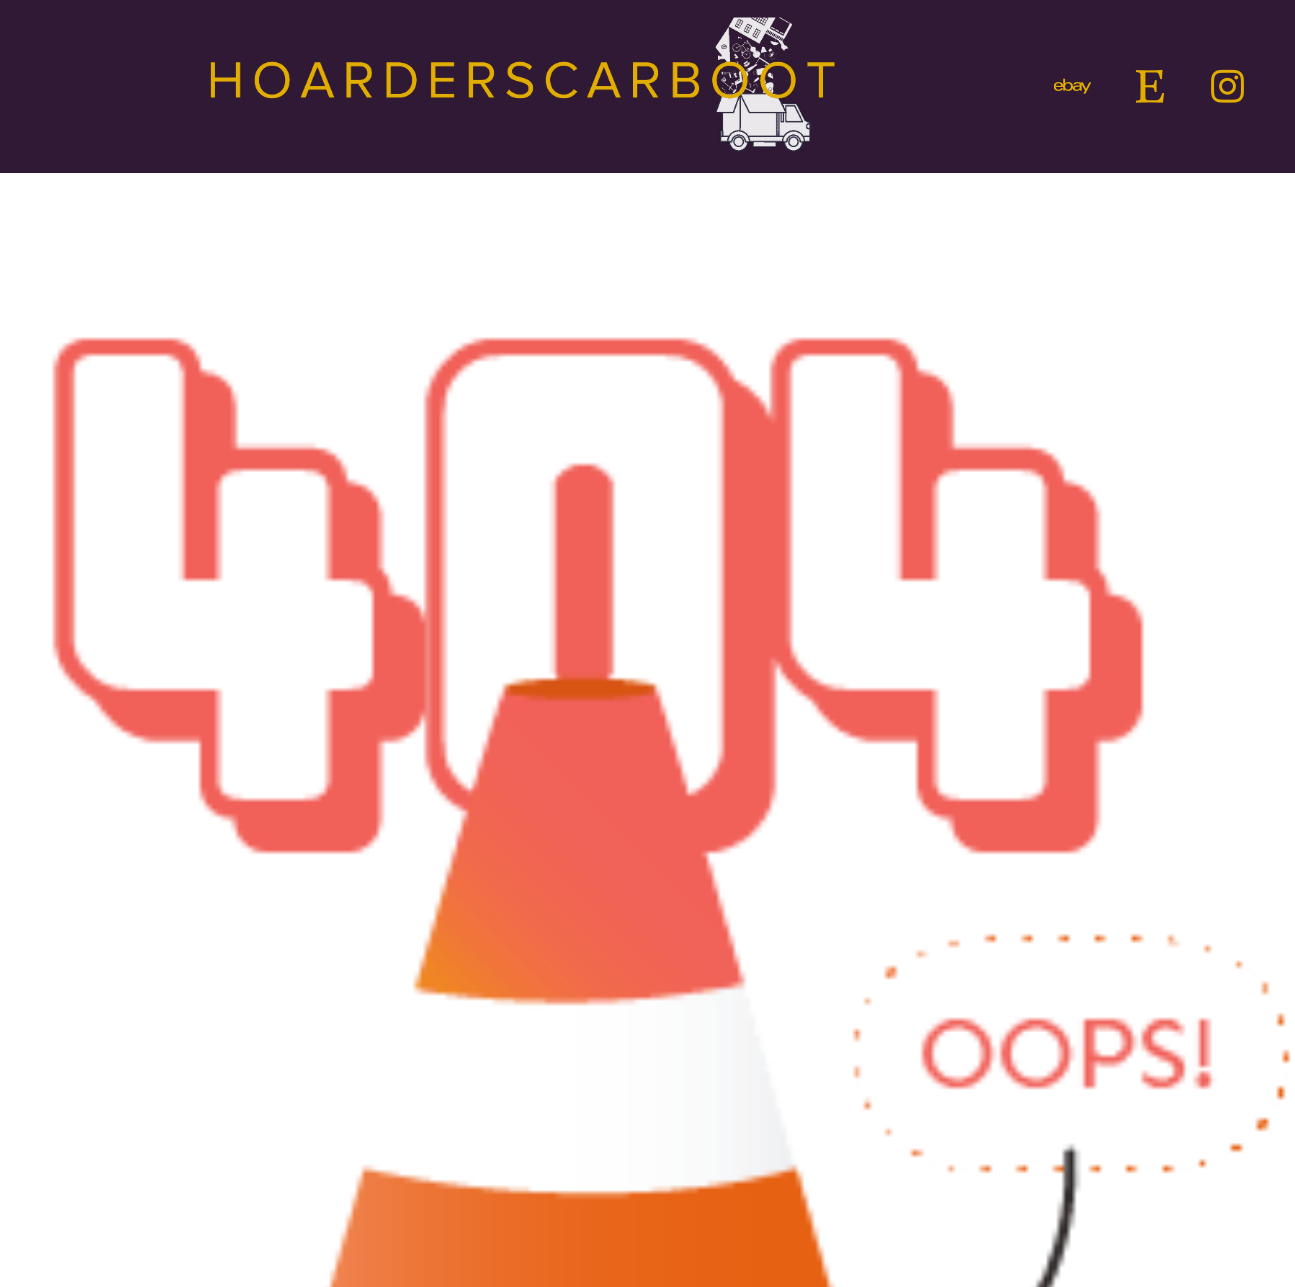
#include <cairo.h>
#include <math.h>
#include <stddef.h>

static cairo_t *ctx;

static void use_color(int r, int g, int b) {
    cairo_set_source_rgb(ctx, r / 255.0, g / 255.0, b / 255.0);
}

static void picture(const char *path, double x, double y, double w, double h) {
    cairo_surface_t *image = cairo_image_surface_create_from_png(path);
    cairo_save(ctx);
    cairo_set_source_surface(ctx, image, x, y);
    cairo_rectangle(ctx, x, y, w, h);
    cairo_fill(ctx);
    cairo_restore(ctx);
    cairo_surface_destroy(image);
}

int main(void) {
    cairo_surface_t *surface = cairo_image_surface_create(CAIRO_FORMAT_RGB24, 1295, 1287);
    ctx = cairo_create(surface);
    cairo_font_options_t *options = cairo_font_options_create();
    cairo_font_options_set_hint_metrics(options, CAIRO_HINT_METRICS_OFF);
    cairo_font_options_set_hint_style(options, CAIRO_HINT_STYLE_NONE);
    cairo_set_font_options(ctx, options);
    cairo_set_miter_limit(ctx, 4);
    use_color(255, 255, 255);
    cairo_paint(ctx);
    use_color(48, 25, 52);
    cairo_rectangle(ctx, 0, 0, 1295, 173);
    cairo_fill(ctx);
    picture("img1.png", 210, 17, 625, 135);
    picture("img2.png", 1054, 78, 37, 16);
    picture("img3.png", 1135, 69, 29, 34);
    picture("img4.png", 1211, 69, 33, 34);
    picture("img5.png", 51, 337, 1240, 950);
    cairo_surface_write_to_png(surface, "result.png");
    cairo_font_options_destroy(options);
    cairo_destroy(ctx);
    cairo_surface_destroy(surface);
    return 0;
}
